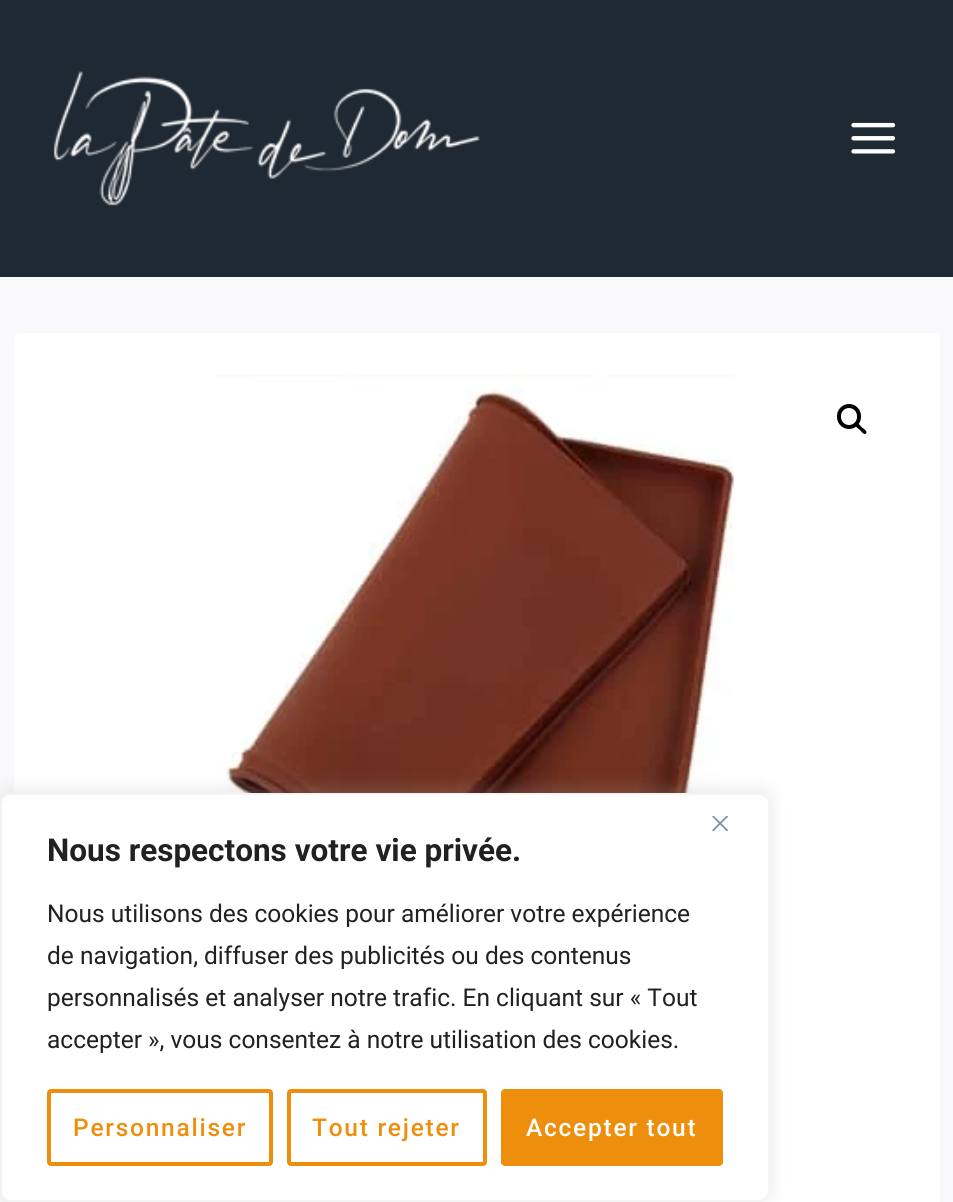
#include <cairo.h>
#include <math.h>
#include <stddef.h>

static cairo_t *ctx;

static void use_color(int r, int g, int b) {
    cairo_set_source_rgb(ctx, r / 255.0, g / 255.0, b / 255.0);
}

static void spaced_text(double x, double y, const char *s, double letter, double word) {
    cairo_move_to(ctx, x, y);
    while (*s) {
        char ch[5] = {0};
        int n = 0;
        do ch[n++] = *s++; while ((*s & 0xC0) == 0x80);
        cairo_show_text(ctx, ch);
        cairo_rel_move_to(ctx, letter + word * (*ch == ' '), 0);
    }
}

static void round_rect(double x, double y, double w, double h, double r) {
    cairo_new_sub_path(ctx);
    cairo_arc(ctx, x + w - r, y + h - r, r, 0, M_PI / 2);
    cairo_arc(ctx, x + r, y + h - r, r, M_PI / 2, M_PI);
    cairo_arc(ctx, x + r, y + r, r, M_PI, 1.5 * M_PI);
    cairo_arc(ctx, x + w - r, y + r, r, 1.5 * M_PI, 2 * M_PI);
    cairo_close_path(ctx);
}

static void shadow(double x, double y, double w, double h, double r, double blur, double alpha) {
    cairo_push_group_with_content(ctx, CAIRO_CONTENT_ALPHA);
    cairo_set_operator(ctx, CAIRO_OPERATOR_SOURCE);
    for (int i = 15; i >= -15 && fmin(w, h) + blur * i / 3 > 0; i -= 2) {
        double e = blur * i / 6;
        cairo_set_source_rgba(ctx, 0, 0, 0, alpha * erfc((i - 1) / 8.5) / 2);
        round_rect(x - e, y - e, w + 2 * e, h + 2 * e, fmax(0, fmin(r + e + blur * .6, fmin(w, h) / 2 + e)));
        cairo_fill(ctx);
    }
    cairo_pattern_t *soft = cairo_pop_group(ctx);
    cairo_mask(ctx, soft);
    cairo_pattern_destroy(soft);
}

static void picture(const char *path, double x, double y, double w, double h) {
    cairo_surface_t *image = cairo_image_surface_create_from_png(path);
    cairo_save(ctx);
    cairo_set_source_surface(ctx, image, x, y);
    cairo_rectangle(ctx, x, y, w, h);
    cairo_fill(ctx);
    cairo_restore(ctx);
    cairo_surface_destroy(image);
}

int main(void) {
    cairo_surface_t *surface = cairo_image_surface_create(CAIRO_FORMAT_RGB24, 953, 1202);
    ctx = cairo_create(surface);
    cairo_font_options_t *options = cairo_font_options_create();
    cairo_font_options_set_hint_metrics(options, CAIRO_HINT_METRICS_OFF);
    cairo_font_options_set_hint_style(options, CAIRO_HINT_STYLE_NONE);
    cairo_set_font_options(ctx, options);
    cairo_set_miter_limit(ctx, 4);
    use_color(249, 249, 251);
    cairo_paint(ctx);
    use_color(31, 41, 51);
    cairo_rectangle(ctx, 0, 0, 953, 277);
    cairo_fill(ctx);
    picture("img1.png", 53, 71, 427, 135);
    picture("img2.png", 851, 122, 45, 32);
    use_color(255, 255, 255);
    round_rect(14, 333, 926, 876, 7);
    cairo_fill(ctx);
    picture("img3.png", 216, 374, 519, 419);
    round_rect(839, 406, 20, 21, 10);
    use_color(0, 0, 0);
    cairo_set_line_width(ctx, 4);
    cairo_stroke(ctx);
    cairo_new_path(ctx);
    cairo_move_to(ctx, 856, 424);
    cairo_curve_to(ctx, 858, 422, 861, 426.5, 862, 427.5);
    cairo_curve_to(ctx, 863.5, 428.5, 868, 431.5, 866, 433.5);
    cairo_curve_to(ctx, 864, 435.5, 861, 431, 860, 430);
    cairo_curve_to(ctx, 858.5, 429, 854, 426, 856, 424);
    cairo_close_path(ctx);
    cairo_fill(ctx);
    use_color(172, 171, 171);
    shadow(0, 791, 770, 410, 11, 9, 0.3);
    use_color(255, 255, 255);
    round_rect(1, 794, 768, 407, 10);
    cairo_fill_preserve(ctx);
    use_color(244, 244, 244);
    cairo_set_line_width(ctx, 2);
    cairo_stroke(ctx);
    picture("img4.png", 712, 816, 16, 15);
    cairo_select_font_face(ctx, "Roboto", CAIRO_FONT_SLANT_NORMAL, CAIRO_FONT_WEIGHT_BOLD);
    cairo_set_font_size(ctx, 31.5);
    use_color(33, 33, 33);
    cairo_move_to(ctx, 47, 861);
    cairo_show_text(ctx, "Nous respectons votre vie privée.");
    cairo_select_font_face(ctx, "Roboto", CAIRO_FONT_SLANT_NORMAL, CAIRO_FONT_WEIGHT_NORMAL);
    cairo_set_font_size(ctx, 24.5);
    cairo_move_to(ctx, 47, 922);
    cairo_show_text(ctx, "Nous utilisons des cookies pour améliorer votre expérience");
    cairo_move_to(ctx, 47, 964);
    cairo_show_text(ctx, "de navigation, diffuser des publicités ou des contenus");
    cairo_move_to(ctx, 47, 1006);
    cairo_show_text(ctx, "personnalisés et analyser notre trafic. En cliquant sur « Tout");
    cairo_move_to(ctx, 47, 1048);
    cairo_show_text(ctx, "accepter », vous consentez à notre utilisation des cookies.");
    round_rect(49, 1091, 222, 73, 2);
    use_color(237, 143, 12);
    cairo_set_line_width(ctx, 4);
    cairo_stroke(ctx);
    cairo_select_font_face(ctx, "Roboto Medium", CAIRO_FONT_SLANT_NORMAL, CAIRO_FONT_WEIGHT_NORMAL);
    spaced_text(73, 1136, "Personnaliser", 1.75, 0);
    round_rect(289, 1091, 196, 73, 2);
    cairo_stroke(ctx);
    spaced_text(312, 1136, "Tout rejeter", 1.75, 0);
    round_rect(503, 1091, 218, 73, 2);
    cairo_fill_preserve(ctx);
    cairo_stroke(ctx);
    use_color(255, 255, 255);
    spaced_text(526, 1136, "Accepter tout", 1.75, 0);
    cairo_surface_write_to_png(surface, "result.png");
    cairo_font_options_destroy(options);
    cairo_destroy(ctx);
    cairo_surface_destroy(surface);
    return 0;
}
